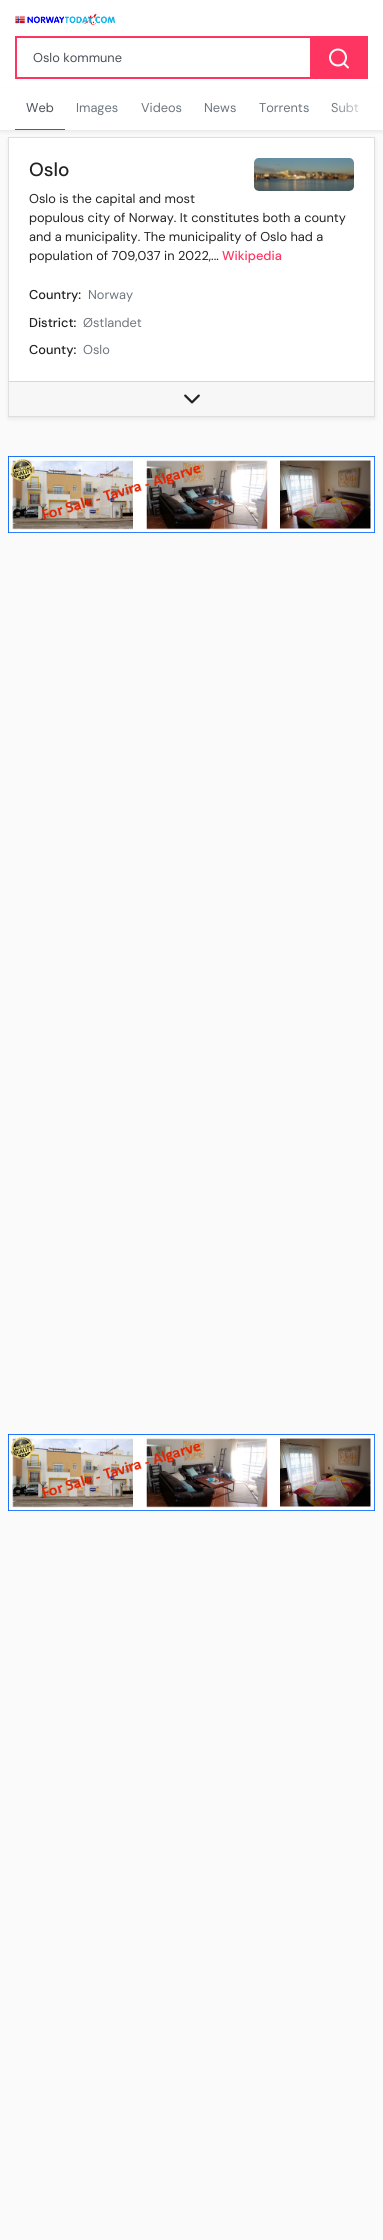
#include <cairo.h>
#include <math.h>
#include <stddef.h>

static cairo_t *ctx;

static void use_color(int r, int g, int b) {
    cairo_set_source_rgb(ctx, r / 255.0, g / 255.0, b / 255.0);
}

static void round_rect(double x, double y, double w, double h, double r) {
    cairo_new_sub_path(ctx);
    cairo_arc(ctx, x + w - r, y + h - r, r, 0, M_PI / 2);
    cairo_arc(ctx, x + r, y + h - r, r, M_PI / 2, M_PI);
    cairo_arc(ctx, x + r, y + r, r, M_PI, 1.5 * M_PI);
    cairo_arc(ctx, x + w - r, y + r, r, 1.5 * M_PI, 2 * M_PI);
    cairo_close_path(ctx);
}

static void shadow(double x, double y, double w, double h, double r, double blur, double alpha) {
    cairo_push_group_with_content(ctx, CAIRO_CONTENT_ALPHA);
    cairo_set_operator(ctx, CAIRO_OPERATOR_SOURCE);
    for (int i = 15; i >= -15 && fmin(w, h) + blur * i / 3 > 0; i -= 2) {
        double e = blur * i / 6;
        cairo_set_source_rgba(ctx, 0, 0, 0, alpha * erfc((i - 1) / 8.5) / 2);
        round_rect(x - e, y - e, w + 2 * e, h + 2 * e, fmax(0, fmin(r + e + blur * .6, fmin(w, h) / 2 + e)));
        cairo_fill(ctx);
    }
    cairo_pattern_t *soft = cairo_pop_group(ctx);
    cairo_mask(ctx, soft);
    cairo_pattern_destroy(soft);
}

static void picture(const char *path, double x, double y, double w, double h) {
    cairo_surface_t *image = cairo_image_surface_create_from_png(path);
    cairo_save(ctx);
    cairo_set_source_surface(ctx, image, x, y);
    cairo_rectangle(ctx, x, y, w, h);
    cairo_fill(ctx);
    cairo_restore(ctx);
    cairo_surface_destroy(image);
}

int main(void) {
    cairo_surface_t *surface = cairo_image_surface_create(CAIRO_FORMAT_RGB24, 383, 2240);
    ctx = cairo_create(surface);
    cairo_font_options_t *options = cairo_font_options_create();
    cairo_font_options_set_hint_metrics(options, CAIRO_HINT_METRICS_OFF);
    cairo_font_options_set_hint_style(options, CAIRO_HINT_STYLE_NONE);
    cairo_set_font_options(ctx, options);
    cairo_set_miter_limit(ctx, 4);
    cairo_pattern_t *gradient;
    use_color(250, 250, 250);
    cairo_paint(ctx);
    use_color(255, 255, 255);
    cairo_rectangle(ctx, 0, 0, 383, 87);
    cairo_fill(ctx);
    picture("img1.png", 15, 14, 100, 11);
    use_color(254, 53, 96);
    cairo_rectangle(ctx, 15, 36, 296, 2);
    cairo_fill(ctx);
    cairo_rectangle(ctx, 15, 77, 296, 2);
    cairo_fill(ctx);
    cairo_rectangle(ctx, 15, 36, 2, 43);
    cairo_fill(ctx);
    cairo_select_font_face(ctx, "DM Sans", CAIRO_FONT_SLANT_NORMAL, CAIRO_FONT_WEIGHT_NORMAL);
    cairo_set_font_size(ctx, 12.8);
    use_color(73, 80, 87);
    cairo_move_to(ctx, 33, 62);
    cairo_show_text(ctx, "Oslo kommune");
    use_color(254, 53, 96);
    cairo_rectangle(ctx, 310, 36, 58, 43);
    cairo_fill(ctx);
    picture("img2.png", 329, 48, 20, 21);
    use_color(0, 0, 0);
    shadow(0, 89, 383, 43, 0, 2, 0.07);
    use_color(255, 255, 255);
    cairo_rectangle(ctx, 0, 87, 370, 43);
    cairo_fill(ctx);
    use_color(108, 117, 125);
    cairo_move_to(ctx, 331, 112);
    cairo_show_text(ctx, "Subt");
    gradient = cairo_pattern_create_linear(333, 109, 383, 109);
    cairo_pattern_add_color_stop_rgba(gradient, 0, 1, 1, 1, 0);
    cairo_pattern_add_color_stop_rgba(gradient, 0.75, 1, 1, 1, 1);
    cairo_pattern_add_color_stop_rgba(gradient, 1, 1, 1, 1, 1);
    cairo_set_source(ctx, gradient);
    cairo_pattern_destroy(gradient);
    cairo_rectangle(ctx, 334, 87, 49, 43);
    cairo_fill(ctx);
    use_color(15, 105, 255);
    cairo_rectangle(ctx, 15, 129, 50, 1);
    cairo_fill(ctx);
    use_color(73, 80, 87);
    cairo_move_to(ctx, 26, 112);
    cairo_show_text(ctx, "Web");
    use_color(108, 117, 125);
    cairo_move_to(ctx, 76, 112);
    cairo_show_text(ctx, "Images");
    cairo_move_to(ctx, 141, 112);
    cairo_show_text(ctx, "Videos");
    cairo_move_to(ctx, 204, 112);
    cairo_show_text(ctx, "News");
    cairo_move_to(ctx, 259, 112);
    cairo_show_text(ctx, "Torrents");
    use_color(0, 0, 0);
    shadow(8, 139, 367, 280, 0, 2, 0.07);
    use_color(255, 255, 255);
    cairo_rectangle(ctx, 9, 138, 365, 243);
    cairo_fill(ctx);
    cairo_rectangle(ctx, 8.5, 137.5, 366, 279);
    use_color(223, 223, 223);
    cairo_set_line_width(ctx, 1);
    cairo_stroke(ctx);
    cairo_select_font_face(ctx, "DM Sans Medium", CAIRO_FONT_SLANT_NORMAL, CAIRO_FONT_WEIGHT_NORMAL);
    cairo_set_font_size(ctx, 19);
    use_color(34, 34, 34);
    cairo_move_to(ctx, 29, 176);
    cairo_show_text(ctx, "Oslo");
    picture("img3.png", 254, 158, 100, 33);
    cairo_select_font_face(ctx, "DM Sans", CAIRO_FONT_SLANT_NORMAL, CAIRO_FONT_WEIGHT_NORMAL);
    cairo_set_font_size(ctx, 12.8);
    cairo_move_to(ctx, 29, 203);
    cairo_show_text(ctx, "Oslo is the capital and most");
    cairo_move_to(ctx, 29, 222);
    cairo_show_text(ctx, "populous city of Norway. It constitutes both a county");
    cairo_move_to(ctx, 29, 241);
    cairo_show_text(ctx, "and a municipality. The municipality of Oslo had a");
    cairo_move_to(ctx, 29, 260);
    cairo_show_text(ctx, "population of 709,037 in 2022,...");
    cairo_select_font_face(ctx, "DM Sans Medium", CAIRO_FONT_SLANT_NORMAL, CAIRO_FONT_WEIGHT_NORMAL);
    use_color(254, 53, 96);
    cairo_move_to(ctx, 222, 260);
    cairo_show_text(ctx, "Wikipedia");
    use_color(34, 34, 34);
    cairo_move_to(ctx, 29, 299);
    cairo_show_text(ctx, "Country:");
    cairo_select_font_face(ctx, "DM Sans", CAIRO_FONT_SLANT_NORMAL, CAIRO_FONT_WEIGHT_NORMAL);
    use_color(108, 117, 125);
    cairo_move_to(ctx, 88, 299);
    cairo_show_text(ctx, "Norway");
    cairo_select_font_face(ctx, "DM Sans Medium", CAIRO_FONT_SLANT_NORMAL, CAIRO_FONT_WEIGHT_NORMAL);
    use_color(34, 34, 34);
    cairo_move_to(ctx, 29, 327);
    cairo_show_text(ctx, "District:");
    cairo_select_font_face(ctx, "DM Sans", CAIRO_FONT_SLANT_NORMAL, CAIRO_FONT_WEIGHT_NORMAL);
    use_color(108, 117, 125);
    cairo_move_to(ctx, 83, 327);
    cairo_show_text(ctx, "Østlandet");
    cairo_select_font_face(ctx, "DM Sans Medium", CAIRO_FONT_SLANT_NORMAL, CAIRO_FONT_WEIGHT_NORMAL);
    use_color(34, 34, 34);
    cairo_move_to(ctx, 29, 354);
    cairo_show_text(ctx, "County:");
    cairo_select_font_face(ctx, "DM Sans", CAIRO_FONT_SLANT_NORMAL, CAIRO_FONT_WEIGHT_NORMAL);
    use_color(108, 117, 125);
    cairo_move_to(ctx, 83, 354);
    cairo_show_text(ctx, "Oslo");
    use_color(247, 247, 247);
    cairo_rectangle(ctx, 9, 382, 365, 34);
    cairo_fill(ctx);
    use_color(216, 216, 216);
    cairo_rectangle(ctx, 9, 381, 365, 1);
    cairo_fill(ctx);
    picture("img4.png", 184, 394, 16, 10);
    picture("img5.png", 8, 456, 367, 77);
    picture("img5.png", 8, 1434, 367, 77);
    cairo_surface_write_to_png(surface, "result.png");
    cairo_font_options_destroy(options);
    cairo_destroy(ctx);
    cairo_surface_destroy(surface);
    return 0;
}
